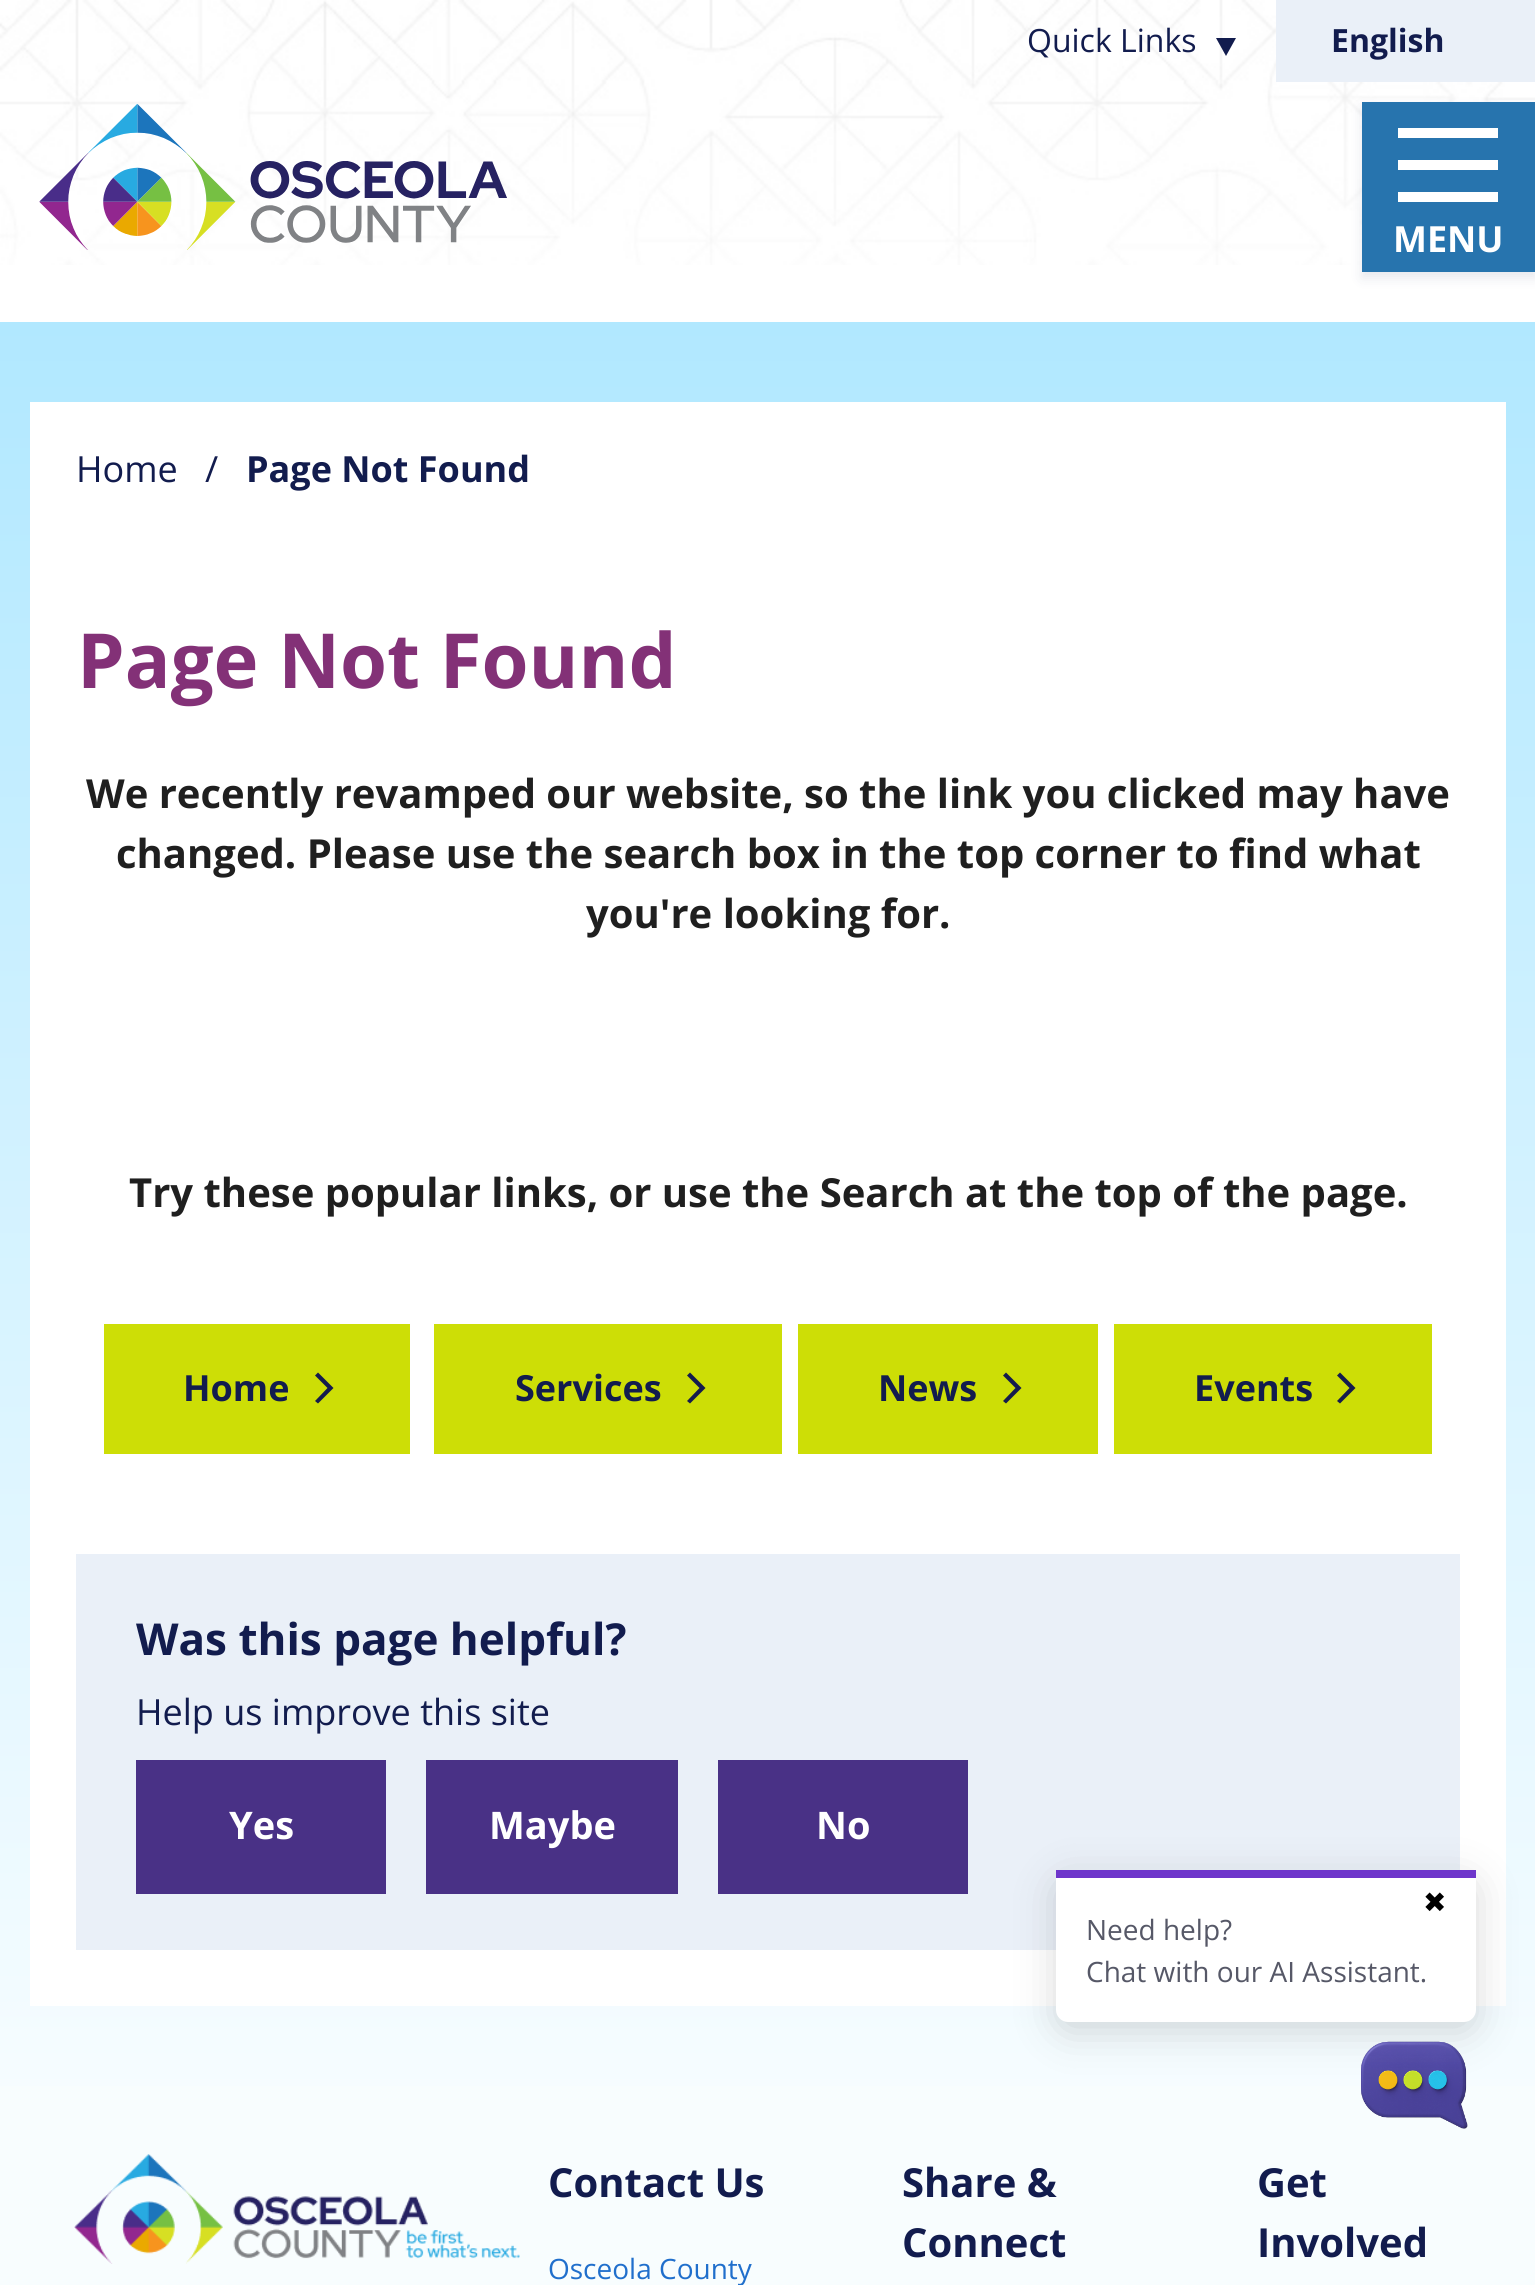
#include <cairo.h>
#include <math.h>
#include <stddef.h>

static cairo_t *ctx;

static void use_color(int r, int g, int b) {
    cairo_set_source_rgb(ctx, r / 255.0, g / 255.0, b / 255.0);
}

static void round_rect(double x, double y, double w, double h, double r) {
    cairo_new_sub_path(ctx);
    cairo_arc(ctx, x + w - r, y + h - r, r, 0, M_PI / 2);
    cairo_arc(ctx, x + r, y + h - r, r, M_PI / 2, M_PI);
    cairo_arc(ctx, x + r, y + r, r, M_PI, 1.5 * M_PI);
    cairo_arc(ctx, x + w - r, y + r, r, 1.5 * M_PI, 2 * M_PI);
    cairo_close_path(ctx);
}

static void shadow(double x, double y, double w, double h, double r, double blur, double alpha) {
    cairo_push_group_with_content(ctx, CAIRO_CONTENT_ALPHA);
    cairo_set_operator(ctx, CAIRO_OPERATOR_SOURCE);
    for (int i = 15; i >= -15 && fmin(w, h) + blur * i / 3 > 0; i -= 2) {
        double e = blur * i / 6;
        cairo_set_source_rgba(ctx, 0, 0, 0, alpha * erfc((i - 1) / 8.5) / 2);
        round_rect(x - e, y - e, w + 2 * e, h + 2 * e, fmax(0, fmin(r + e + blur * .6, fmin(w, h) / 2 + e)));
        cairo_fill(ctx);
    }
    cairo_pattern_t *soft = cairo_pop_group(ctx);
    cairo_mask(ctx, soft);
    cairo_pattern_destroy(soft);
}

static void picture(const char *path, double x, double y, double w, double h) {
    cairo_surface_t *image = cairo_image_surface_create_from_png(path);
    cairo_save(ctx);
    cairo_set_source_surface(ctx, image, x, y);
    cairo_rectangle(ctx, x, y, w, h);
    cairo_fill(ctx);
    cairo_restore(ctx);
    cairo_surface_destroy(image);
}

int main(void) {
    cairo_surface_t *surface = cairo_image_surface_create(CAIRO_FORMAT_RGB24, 1535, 2285);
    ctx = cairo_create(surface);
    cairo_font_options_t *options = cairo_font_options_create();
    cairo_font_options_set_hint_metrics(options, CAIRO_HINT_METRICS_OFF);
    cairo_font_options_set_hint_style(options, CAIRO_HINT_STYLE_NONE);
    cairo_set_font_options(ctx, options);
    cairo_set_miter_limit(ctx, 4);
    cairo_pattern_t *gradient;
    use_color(255, 255, 255);
    cairo_paint(ctx);
    picture("img1.png", 0, 0, 1276, 82);
    cairo_select_font_face(ctx, "Open Sans", CAIRO_FONT_SLANT_NORMAL, CAIRO_FONT_WEIGHT_NORMAL);
    cairo_set_font_size(ctx, 32);
    use_color(18, 28, 78);
    cairo_move_to(ctx, 1027, 52);
    cairo_show_text(ctx, "Quick Links");
    cairo_new_path(ctx);
    cairo_move_to(ctx, 1216, 38);
    cairo_line_to(ctx, 1236, 38);
    cairo_line_to(ctx, 1226, 56);
    cairo_close_path(ctx);
    cairo_fill(ctx);
    use_color(234, 240, 248);
    cairo_rectangle(ctx, 1276, 0, 259, 82);
    cairo_fill(ctx);
    cairo_select_font_face(ctx, "Open Sans", CAIRO_FONT_SLANT_NORMAL, CAIRO_FONT_WEIGHT_BOLD);
    use_color(18, 28, 78);
    cairo_move_to(ctx, 1331, 52);
    cairo_show_text(ctx, "English");
    picture("img2.png", 0, 82, 1535, 183);
    picture("img3.png", 39, 104, 468, 146);
    use_color(18, 28, 78);
    shadow(1362, 108, 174, 170, 0, 6, 0.1);
    use_color(39, 116, 174);
    cairo_rectangle(ctx, 1362, 102, 173, 170);
    cairo_fill(ctx);
    use_color(255, 255, 255);
    cairo_rectangle(ctx, 1398, 160, 100, 10);
    cairo_fill(ctx);
    cairo_rectangle(ctx, 1398, 128, 100, 10);
    cairo_fill(ctx);
    cairo_rectangle(ctx, 1398, 192, 100, 10);
    cairo_fill(ctx);
    cairo_set_font_size(ctx, 36);
    cairo_move_to(ctx, 1393, 252);
    cairo_show_text(ctx, "MENU");
    gradient = cairo_pattern_create_linear(768, 322, 768, 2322);
    cairo_pattern_add_color_stop_rgba(gradient, 0, 0.694, 0.91, 1, 1);
    cairo_pattern_add_color_stop_rgba(gradient, 1, 1, 1, 1, 1);
    cairo_set_source(ctx, gradient);
    cairo_pattern_destroy(gradient);
    cairo_rectangle(ctx, 0, 322, 1535, 1764);
    cairo_fill(ctx);
    use_color(255, 255, 255);
    cairo_rectangle(ctx, 30, 402, 1476, 1604);
    cairo_fill(ctx);
    cairo_select_font_face(ctx, "Open Sans", CAIRO_FONT_SLANT_NORMAL, CAIRO_FONT_WEIGHT_NORMAL);
    use_color(18, 28, 78);
    cairo_move_to(ctx, 76, 482);
    cairo_show_text(ctx, "Home");
    cairo_move_to(ctx, 205, 482);
    cairo_show_text(ctx, "/");
    cairo_select_font_face(ctx, "Open Sans", CAIRO_FONT_SLANT_NORMAL, CAIRO_FONT_WEIGHT_BOLD);
    cairo_move_to(ctx, 246, 482);
    cairo_show_text(ctx, "Page Not Found");
    cairo_set_font_size(ctx, 76);
    use_color(131, 49, 119);
    cairo_move_to(ctx, 77, 688);
    cairo_show_text(ctx, "Page Not Found");
    cairo_set_font_size(ctx, 40);
    use_color(31, 31, 31);
    cairo_move_to(ctx, 86, 808);
    cairo_show_text(ctx, "We recently revamped our website, so the link you clicked may have");
    cairo_move_to(ctx, 116, 868);
    cairo_show_text(ctx, "changed. Please use the search box in the top corner to find what");
    cairo_move_to(ctx, 586, 928);
    cairo_show_text(ctx, "you're looking for.");
    cairo_move_to(ctx, 129, 1207);
    cairo_show_text(ctx, "Try these popular links, or use the Search at the top of the page.");
    use_color(205, 222, 6);
    cairo_rectangle(ctx, 104, 1324, 306, 130);
    cairo_fill(ctx);
    cairo_set_font_size(ctx, 36);
    use_color(18, 28, 78);
    cairo_move_to(ctx, 183, 1401);
    cairo_show_text(ctx, "Home");
    use_color(20, 27, 77);
    cairo_new_path(ctx);
    cairo_move_to(ctx, 318, 1403.5);
    cairo_line_to(ctx, 315, 1401);
    cairo_line_to(ctx, 327.5, 1388);
    cairo_line_to(ctx, 315, 1375.5);
    cairo_line_to(ctx, 318, 1372.5);
    cairo_line_to(ctx, 333.5, 1388);
    cairo_close_path(ctx);
    cairo_fill(ctx);
    use_color(205, 222, 6);
    cairo_rectangle(ctx, 434, 1324, 348, 130);
    cairo_fill(ctx);
    use_color(18, 28, 78);
    cairo_move_to(ctx, 515, 1401);
    cairo_show_text(ctx, "Services");
    use_color(20, 27, 77);
    cairo_new_path(ctx);
    cairo_move_to(ctx, 690, 1403.5);
    cairo_line_to(ctx, 687, 1401);
    cairo_line_to(ctx, 699.5, 1388);
    cairo_line_to(ctx, 687, 1375.5);
    cairo_line_to(ctx, 690, 1372.5);
    cairo_line_to(ctx, 705.5, 1388);
    cairo_close_path(ctx);
    cairo_fill(ctx);
    use_color(205, 222, 6);
    cairo_rectangle(ctx, 798, 1324, 300, 130);
    cairo_fill(ctx);
    use_color(18, 28, 78);
    cairo_move_to(ctx, 878, 1401);
    cairo_show_text(ctx, "News");
    use_color(20, 27, 77);
    cairo_new_path(ctx);
    cairo_move_to(ctx, 1006, 1403.5);
    cairo_line_to(ctx, 1003, 1401);
    cairo_line_to(ctx, 1015.5, 1388);
    cairo_line_to(ctx, 1003, 1375.5);
    cairo_line_to(ctx, 1006, 1372.5);
    cairo_line_to(ctx, 1021.5, 1388);
    cairo_close_path(ctx);
    cairo_fill(ctx);
    use_color(205, 222, 6);
    cairo_rectangle(ctx, 1114, 1324, 318, 130);
    cairo_fill(ctx);
    use_color(18, 28, 78);
    cairo_move_to(ctx, 1194, 1401);
    cairo_show_text(ctx, "Events");
    use_color(20, 27, 77);
    cairo_new_path(ctx);
    cairo_move_to(ctx, 1340, 1403.5);
    cairo_line_to(ctx, 1337, 1401);
    cairo_line_to(ctx, 1349.5, 1388);
    cairo_line_to(ctx, 1337, 1375.5);
    cairo_line_to(ctx, 1340, 1372.5);
    cairo_line_to(ctx, 1355.5, 1388);
    cairo_close_path(ctx);
    cairo_fill(ctx);
    use_color(234, 240, 248);
    cairo_rectangle(ctx, 76, 1554, 1384, 396);
    cairo_fill(ctx);
    cairo_set_font_size(ctx, 44);
    use_color(18, 28, 78);
    cairo_move_to(ctx, 136, 1655);
    cairo_show_text(ctx, "Was this page helpful?");
    cairo_select_font_face(ctx, "Open Sans", CAIRO_FONT_SLANT_NORMAL, CAIRO_FONT_WEIGHT_NORMAL);
    cairo_set_font_size(ctx, 36);
    cairo_move_to(ctx, 136, 1725);
    cairo_show_text(ctx, "Help us improve this site");
    use_color(73, 49, 134);
    cairo_rectangle(ctx, 136, 1760, 250, 134);
    cairo_fill(ctx);
    cairo_select_font_face(ctx, "Open Sans", CAIRO_FONT_SLANT_NORMAL, CAIRO_FONT_WEIGHT_BOLD);
    cairo_set_font_size(ctx, 38);
    use_color(255, 255, 255);
    cairo_move_to(ctx, 229, 1839);
    cairo_show_text(ctx, "Yes");
    use_color(73, 49, 134);
    cairo_rectangle(ctx, 426, 1760, 252, 134);
    cairo_fill(ctx);
    use_color(255, 255, 255);
    cairo_move_to(ctx, 489, 1839);
    cairo_show_text(ctx, "Maybe");
    use_color(73, 49, 134);
    cairo_rectangle(ctx, 718, 1760, 250, 134);
    cairo_fill(ctx);
    use_color(255, 255, 255);
    cairo_move_to(ctx, 816, 1839);
    cairo_show_text(ctx, "No");
    use_color(248, 253, 254);
    cairo_rectangle(ctx, 0, 2086, 1535, 199);
    cairo_fill(ctx);
    picture("img4.png", 74, 2154, 446, 110);
    cairo_set_font_size(ctx, 40);
    use_color(18, 28, 78);
    cairo_move_to(ctx, 548, 2197);
    cairo_show_text(ctx, "Contact Us");
    cairo_select_font_face(ctx, "Open Sans", CAIRO_FONT_SLANT_NORMAL, CAIRO_FONT_WEIGHT_NORMAL);
    cairo_set_font_size(ctx, 28);
    use_color(32, 111, 204);
    cairo_move_to(ctx, 548, 2279);
    cairo_show_text(ctx, "Osceola County");
    cairo_select_font_face(ctx, "Open Sans", CAIRO_FONT_SLANT_NORMAL, CAIRO_FONT_WEIGHT_BOLD);
    cairo_set_font_size(ctx, 40);
    use_color(18, 28, 78);
    cairo_move_to(ctx, 902, 2197);
    cairo_show_text(ctx, "Share &");
    cairo_move_to(ctx, 902, 2257);
    cairo_show_text(ctx, "Connect");
    cairo_move_to(ctx, 1257, 2197);
    cairo_show_text(ctx, "Get");
    cairo_move_to(ctx, 1257, 2257);
    cairo_show_text(ctx, "Involved");
    picture("img5.png", 1361, 2041, 107, 88);
    use_color(59, 58, 58);
    shadow(1056, 1880, 420, 152, 12, 20, 0.2);
    use_color(255, 255, 255);
    cairo_new_path(ctx);
    cairo_move_to(ctx, 1056, 1870);
    cairo_line_to(ctx, 1476, 1870);
    cairo_line_to(ctx, 1476, 2010);
    cairo_curve_to(ctx, 1476, 2016.5, 1470.5, 2022, 1464, 2022);
    cairo_line_to(ctx, 1068, 2022);
    cairo_curve_to(ctx, 1061.5, 2022, 1056, 2016.5, 1056, 2010);
    cairo_close_path(ctx);
    cairo_fill(ctx);
    use_color(110, 54, 203);
    cairo_rectangle(ctx, 1056, 1870, 420, 8);
    cairo_fill(ctx);
    cairo_select_font_face(ctx, "DejaVu Sans", CAIRO_FONT_SLANT_NORMAL, CAIRO_FONT_WEIGHT_NORMAL);
    cairo_set_font_size(ctx, 28);
    use_color(0, 0, 0);
    cairo_move_to(ctx, 1423, 1912);
    cairo_show_text(ctx, "✖");
    cairo_select_font_face(ctx, "Open Sans", CAIRO_FONT_SLANT_NORMAL, CAIRO_FONT_WEIGHT_NORMAL);
    use_color(86, 88, 103);
    cairo_move_to(ctx, 1086, 1940);
    cairo_show_text(ctx, "Need help?");
    cairo_move_to(ctx, 1086, 1982);
    cairo_show_text(ctx, "Chat with our AI Assistant.");
    cairo_surface_write_to_png(surface, "result.png");
    cairo_font_options_destroy(options);
    cairo_destroy(ctx);
    cairo_surface_destroy(surface);
    return 0;
}
